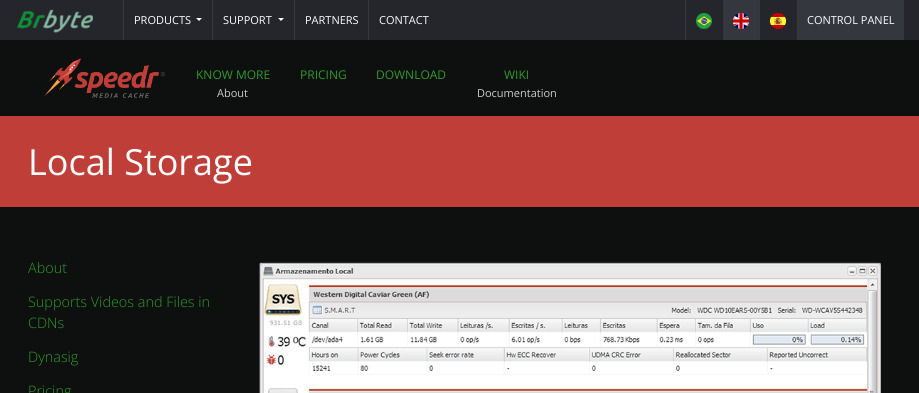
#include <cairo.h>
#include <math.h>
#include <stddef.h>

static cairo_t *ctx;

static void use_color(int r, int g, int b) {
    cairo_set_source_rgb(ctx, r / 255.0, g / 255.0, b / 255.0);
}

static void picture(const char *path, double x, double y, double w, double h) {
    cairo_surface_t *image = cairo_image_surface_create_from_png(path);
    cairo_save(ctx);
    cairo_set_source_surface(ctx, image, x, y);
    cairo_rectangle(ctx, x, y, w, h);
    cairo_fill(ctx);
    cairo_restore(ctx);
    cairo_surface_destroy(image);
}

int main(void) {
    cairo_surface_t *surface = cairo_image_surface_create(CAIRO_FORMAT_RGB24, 919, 393);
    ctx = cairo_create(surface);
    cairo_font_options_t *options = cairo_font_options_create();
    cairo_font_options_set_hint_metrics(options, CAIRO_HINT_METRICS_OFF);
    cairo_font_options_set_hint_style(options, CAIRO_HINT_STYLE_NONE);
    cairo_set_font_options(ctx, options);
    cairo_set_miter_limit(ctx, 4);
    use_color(13, 16, 14);
    cairo_paint(ctx);
    use_color(36, 38, 43);
    cairo_rectangle(ctx, 0, 0, 919, 40);
    cairo_fill(ctx);
    picture("img1.png", 17, 9, 76, 24);
    use_color(55, 57, 61);
    cairo_rectangle(ctx, 123, 0, 1, 40);
    cairo_fill(ctx);
    cairo_select_font_face(ctx, "Open Sans", CAIRO_FONT_SLANT_NORMAL, CAIRO_FONT_WEIGHT_NORMAL);
    cairo_set_font_size(ctx, 11);
    use_color(254, 254, 254);
    cairo_move_to(ctx, 134, 24);
    cairo_show_text(ctx, "PRODUCTS");
    use_color(255, 255, 255);
    cairo_new_path(ctx);
    cairo_move_to(ctx, 196, 18);
    cairo_line_to(ctx, 202, 18);
    cairo_line_to(ctx, 199, 21);
    cairo_close_path(ctx);
    cairo_fill(ctx);
    use_color(55, 57, 61);
    cairo_rectangle(ctx, 212, 0, 1, 40);
    cairo_fill(ctx);
    use_color(254, 254, 254);
    cairo_move_to(ctx, 223, 24);
    cairo_show_text(ctx, "SUPPORT");
    use_color(255, 255, 255);
    cairo_new_path(ctx);
    cairo_move_to(ctx, 278, 18);
    cairo_line_to(ctx, 284, 18);
    cairo_line_to(ctx, 281, 21);
    cairo_close_path(ctx);
    cairo_fill(ctx);
    use_color(55, 57, 61);
    cairo_rectangle(ctx, 294, 0, 1, 40);
    cairo_fill(ctx);
    use_color(254, 254, 254);
    cairo_move_to(ctx, 305, 24);
    cairo_show_text(ctx, "PARTNERS");
    use_color(55, 57, 61);
    cairo_rectangle(ctx, 368, 0, 1, 40);
    cairo_fill(ctx);
    use_color(254, 254, 254);
    cairo_move_to(ctx, 379, 24);
    cairo_show_text(ctx, "CONTACT");
    use_color(55, 57, 61);
    cairo_rectangle(ctx, 685, 0, 1, 40);
    cairo_fill(ctx);
    picture("img2.png", 696, 13, 16, 16);
    use_color(52, 55, 62);
    cairo_rectangle(ctx, 723, 0, 36, 40);
    cairo_fill(ctx);
    picture("img3.png", 733, 13, 16, 16);
    use_color(55, 57, 61);
    cairo_rectangle(ctx, 759, 0, 1, 40);
    cairo_fill(ctx);
    picture("img4.png", 770, 13, 16, 16);
    use_color(52, 55, 62);
    cairo_rectangle(ctx, 797, 0, 107, 40);
    cairo_fill(ctx);
    use_color(254, 254, 254);
    cairo_move_to(ctx, 807, 24);
    cairo_show_text(ctx, "CONTROL PANEL");
    picture("img5.png", 44, 58, 121, 40);
    cairo_set_font_size(ctx, 12);
    use_color(46, 153, 43);
    cairo_move_to(ctx, 196, 79);
    cairo_show_text(ctx, "KNOW MORE");
    cairo_set_font_size(ctx, 11);
    use_color(203, 203, 203);
    cairo_move_to(ctx, 217, 97);
    cairo_show_text(ctx, "About");
    cairo_set_font_size(ctx, 12);
    use_color(46, 153, 43);
    cairo_move_to(ctx, 300, 79);
    cairo_show_text(ctx, "PRICING");
    cairo_move_to(ctx, 376, 79);
    cairo_show_text(ctx, "DOWNLOAD");
    cairo_move_to(ctx, 504, 79);
    cairo_show_text(ctx, "WIKI");
    cairo_set_font_size(ctx, 11);
    use_color(203, 203, 203);
    cairo_move_to(ctx, 477, 97);
    cairo_show_text(ctx, "Documentation");
    use_color(192, 62, 56);
    cairo_rectangle(ctx, 0, 116, 919, 91);
    cairo_fill(ctx);
    cairo_set_font_size(ctx, 36);
    use_color(254, 254, 254);
    cairo_move_to(ctx, 28, 175);
    cairo_show_text(ctx, "Local Storage");
    cairo_select_font_face(ctx, "Open Sans Light", CAIRO_FONT_SLANT_NORMAL, CAIRO_FONT_WEIGHT_NORMAL);
    cairo_set_font_size(ctx, 14.4);
    use_color(46, 153, 43);
    cairo_move_to(ctx, 28, 273);
    cairo_show_text(ctx, "About");
    cairo_move_to(ctx, 28, 307);
    cairo_show_text(ctx, "Supports Videos and Files in");
    cairo_move_to(ctx, 28, 328);
    cairo_show_text(ctx, "CDNs");
    cairo_move_to(ctx, 28, 362);
    cairo_show_text(ctx, "Dynasig");
    cairo_move_to(ctx, 28, 396);
    cairo_show_text(ctx, "Pricing");
    picture("img6.png", 259, 262, 622, 131);
    cairo_surface_write_to_png(surface, "result.png");
    cairo_font_options_destroy(options);
    cairo_destroy(ctx);
    cairo_surface_destroy(surface);
    return 0;
}
